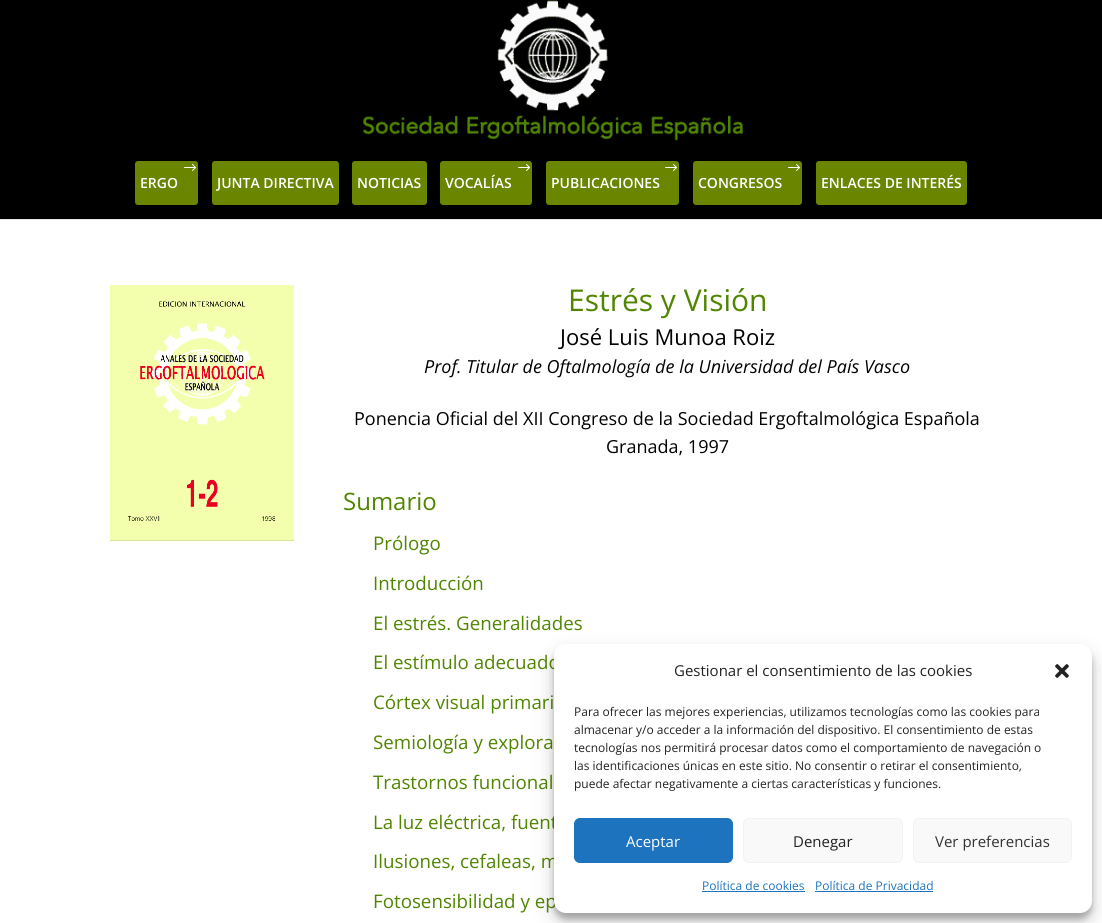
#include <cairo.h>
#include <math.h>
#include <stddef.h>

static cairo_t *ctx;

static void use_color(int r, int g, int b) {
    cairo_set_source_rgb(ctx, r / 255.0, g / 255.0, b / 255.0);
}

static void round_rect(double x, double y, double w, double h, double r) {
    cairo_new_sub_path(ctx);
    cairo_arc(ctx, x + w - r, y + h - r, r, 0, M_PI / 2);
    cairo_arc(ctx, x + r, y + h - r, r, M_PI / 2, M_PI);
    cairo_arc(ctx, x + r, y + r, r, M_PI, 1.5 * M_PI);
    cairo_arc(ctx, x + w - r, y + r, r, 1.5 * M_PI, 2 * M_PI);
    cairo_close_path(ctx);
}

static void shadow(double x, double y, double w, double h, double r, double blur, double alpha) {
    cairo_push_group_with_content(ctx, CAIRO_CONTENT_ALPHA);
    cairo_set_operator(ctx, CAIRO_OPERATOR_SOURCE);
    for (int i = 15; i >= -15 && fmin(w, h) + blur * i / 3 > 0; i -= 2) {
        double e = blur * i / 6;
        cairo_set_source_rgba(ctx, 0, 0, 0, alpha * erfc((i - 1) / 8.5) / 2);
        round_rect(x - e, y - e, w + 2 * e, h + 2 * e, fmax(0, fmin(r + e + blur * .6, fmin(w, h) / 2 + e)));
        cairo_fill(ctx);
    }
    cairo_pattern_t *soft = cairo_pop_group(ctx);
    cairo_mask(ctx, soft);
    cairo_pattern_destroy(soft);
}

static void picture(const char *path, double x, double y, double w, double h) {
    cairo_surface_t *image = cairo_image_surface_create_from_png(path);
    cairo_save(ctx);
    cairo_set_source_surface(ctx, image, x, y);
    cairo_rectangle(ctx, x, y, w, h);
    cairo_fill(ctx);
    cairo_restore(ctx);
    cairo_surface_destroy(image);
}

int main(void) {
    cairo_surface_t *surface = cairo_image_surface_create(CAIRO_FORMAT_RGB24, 1102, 923);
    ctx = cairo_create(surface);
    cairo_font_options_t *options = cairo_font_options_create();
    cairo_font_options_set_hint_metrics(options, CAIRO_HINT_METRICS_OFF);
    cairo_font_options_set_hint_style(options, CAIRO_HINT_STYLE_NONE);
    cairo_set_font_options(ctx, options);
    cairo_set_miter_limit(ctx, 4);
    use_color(255, 255, 255);
    cairo_paint(ctx);
    use_color(230, 230, 230);
    cairo_rectangle(ctx, 0, 219, 1102, 1);
    cairo_fill(ctx);
    use_color(0, 0, 0);
    cairo_rectangle(ctx, 0, 0, 1102, 219);
    cairo_fill(ctx);
    picture("img1.png", 363, 0, 380, 141);
    use_color(106, 133, 0);
    round_rect(135, 161, 63, 44, 3);
    cairo_fill(ctx);
    picture("img2.png", 184, 164, 12, 7);
    cairo_select_font_face(ctx, "Open Sans SemiBold", CAIRO_FONT_SLANT_NORMAL, CAIRO_FONT_WEIGHT_NORMAL);
    cairo_set_font_size(ctx, 14);
    use_color(255, 255, 255);
    cairo_move_to(ctx, 140, 188);
    cairo_show_text(ctx, "ERGO");
    use_color(106, 133, 0);
    round_rect(212, 161, 127, 44, 3);
    cairo_fill(ctx);
    use_color(255, 255, 255);
    cairo_move_to(ctx, 217, 188);
    cairo_show_text(ctx, "JUNTA DIRECTIVA");
    use_color(106, 133, 0);
    round_rect(352, 161, 75, 44, 3);
    cairo_fill(ctx);
    use_color(255, 255, 255);
    cairo_move_to(ctx, 357, 188);
    cairo_show_text(ctx, "NOTICIAS");
    use_color(106, 133, 0);
    round_rect(440, 161, 92, 44, 3);
    cairo_fill(ctx);
    picture("img2.png", 518, 164, 12, 7);
    use_color(255, 255, 255);
    cairo_move_to(ctx, 445, 188);
    cairo_show_text(ctx, "VOCALÍAS");
    use_color(106, 133, 0);
    round_rect(546, 161, 133, 44, 3);
    cairo_fill(ctx);
    picture("img2.png", 665, 164, 12, 7);
    use_color(255, 255, 255);
    cairo_move_to(ctx, 551, 188);
    cairo_show_text(ctx, "PUBLICACIONES");
    use_color(106, 133, 0);
    round_rect(693, 161, 109, 44, 3);
    cairo_fill(ctx);
    picture("img2.png", 788, 164, 12, 7);
    use_color(255, 255, 255);
    cairo_move_to(ctx, 698, 188);
    cairo_show_text(ctx, "CONGRESOS");
    use_color(106, 133, 0);
    round_rect(816, 161, 151, 44, 3);
    cairo_fill(ctx);
    use_color(255, 255, 255);
    cairo_move_to(ctx, 821, 188);
    cairo_show_text(ctx, "ENLACES DE INTERÉS");
    picture("img3.png", 110, 285, 184, 256);
    cairo_select_font_face(ctx, "Open Sans", CAIRO_FONT_SLANT_NORMAL, CAIRO_FONT_WEIGHT_NORMAL);
    cairo_set_font_size(ctx, 30);
    use_color(80, 133, 0);
    cairo_move_to(ctx, 568, 311);
    cairo_show_text(ctx, "Estrés y Visión");
    cairo_set_font_size(ctx, 22);
    use_color(0, 0, 0);
    cairo_move_to(ctx, 560, 345);
    cairo_show_text(ctx, "José Luis Munoa Roiz");
    cairo_select_font_face(ctx, "Open Sans", CAIRO_FONT_SLANT_ITALIC, CAIRO_FONT_WEIGHT_NORMAL);
    cairo_set_font_size(ctx, 18);
    cairo_move_to(ctx, 424, 373);
    cairo_show_text(ctx, "Prof. Titular de Oftalmología de la Universidad del País Vasco");
    cairo_select_font_face(ctx, "Open Sans", CAIRO_FONT_SLANT_NORMAL, CAIRO_FONT_WEIGHT_NORMAL);
    cairo_move_to(ctx, 354, 425);
    cairo_show_text(ctx, "Ponencia Oficial del XII Congreso de la Sociedad Ergoftalmológica Española");
    cairo_move_to(ctx, 606, 453);
    cairo_show_text(ctx, "Granada, 1997");
    cairo_set_font_size(ctx, 24);
    use_color(80, 133, 0);
    cairo_move_to(ctx, 343, 510);
    cairo_show_text(ctx, "Sumario");
    cairo_set_font_size(ctx, 18.75);
    cairo_move_to(ctx, 373, 550);
    cairo_show_text(ctx, "Prólogo");
    cairo_move_to(ctx, 373, 590);
    cairo_show_text(ctx, "Introducción");
    cairo_move_to(ctx, 373, 630);
    cairo_show_text(ctx, "El estrés. Generalidades");
    cairo_move_to(ctx, 373, 669);
    cairo_show_text(ctx, "El estímulo adecuado");
    cairo_move_to(ctx, 373, 709);
    cairo_show_text(ctx, "Córtex visual primari");
    cairo_move_to(ctx, 373, 749);
    cairo_show_text(ctx, "Semiología y explora");
    cairo_move_to(ctx, 373, 789);
    cairo_show_text(ctx, "Trastornos funcional");
    cairo_move_to(ctx, 373, 829);
    cairo_show_text(ctx, "La luz eléctrica, fuent");
    cairo_move_to(ctx, 373, 868);
    cairo_show_text(ctx, "Ilusiones, cefaleas, m");
    cairo_move_to(ctx, 373, 908);
    cairo_show_text(ctx, "Fotosensibilidad y ep");
    use_color(0, 0, 0);
    shadow(554, 650, 538, 269, 12, 3, 0.23);
    shadow(554, 654, 538, 269, 12, 10, 0.19);
    use_color(255, 255, 255);
    round_rect(554, 644, 538, 269, 12);
    cairo_fill(ctx);
    cairo_set_font_size(ctx, 15);
    use_color(34, 34, 34);
    cairo_move_to(ctx, 674, 676);
    cairo_show_text(ctx, "Gestionar el consentimiento de las cookies");
    picture("img4.png", 1055, 664, 14, 14);
    cairo_set_font_size(ctx, 12);
    cairo_move_to(ctx, 574, 716);
    cairo_show_text(ctx, "Para ofrecer las mejores experiencias, utilizamos tecnologías como las cookies para");
    cairo_move_to(ctx, 574, 734);
    cairo_show_text(ctx, "almacenar y/o acceder a la información del dispositivo. El consentimiento de estas");
    cairo_move_to(ctx, 574, 752);
    cairo_show_text(ctx, "tecnologías nos permitirá procesar datos como el comportamiento de navegación o");
    cairo_move_to(ctx, 574, 770);
    cairo_show_text(ctx, "las identificaciones únicas en este sitio. No consentir o retirar el consentimiento,");
    cairo_move_to(ctx, 574, 788);
    cairo_show_text(ctx, "puede afectar negativamente a ciertas características y funciones.");
    use_color(30, 115, 190);
    round_rect(574.5, 818.5, 158, 44, 5.5);
    cairo_fill_preserve(ctx);
    cairo_set_line_width(ctx, 1);
    cairo_stroke(ctx);
    cairo_set_font_size(ctx, 15);
    use_color(255, 255, 255);
    cairo_move_to(ctx, 626, 847);
    cairo_show_text(ctx, "Aceptar");
    use_color(249, 249, 249);
    round_rect(743.5, 818.5, 159, 44, 5.5);
    cairo_fill_preserve(ctx);
    use_color(242, 242, 242);
    cairo_stroke(ctx);
    use_color(34, 34, 34);
    cairo_move_to(ctx, 793, 847);
    cairo_show_text(ctx, "Denegar");
    use_color(249, 249, 249);
    round_rect(913.5, 818.5, 158, 44, 5.5);
    cairo_fill_preserve(ctx);
    use_color(242, 242, 242);
    cairo_stroke(ctx);
    use_color(51, 51, 51);
    cairo_move_to(ctx, 935, 847);
    cairo_show_text(ctx, "Ver preferencias");
    cairo_set_font_size(ctx, 12);
    use_color(30, 115, 190);
    cairo_move_to(ctx, 702, 890);
    cairo_show_text(ctx, "Política de cookies");
    cairo_rectangle(ctx, 702, 891, 103, 1);
    cairo_fill(ctx);
    cairo_move_to(ctx, 815, 890);
    cairo_show_text(ctx, "Política de Privacidad");
    cairo_rectangle(ctx, 815, 891, 118, 1);
    cairo_fill(ctx);
    cairo_surface_write_to_png(surface, "result.png");
    cairo_font_options_destroy(options);
    cairo_destroy(ctx);
    cairo_surface_destroy(surface);
    return 0;
}
